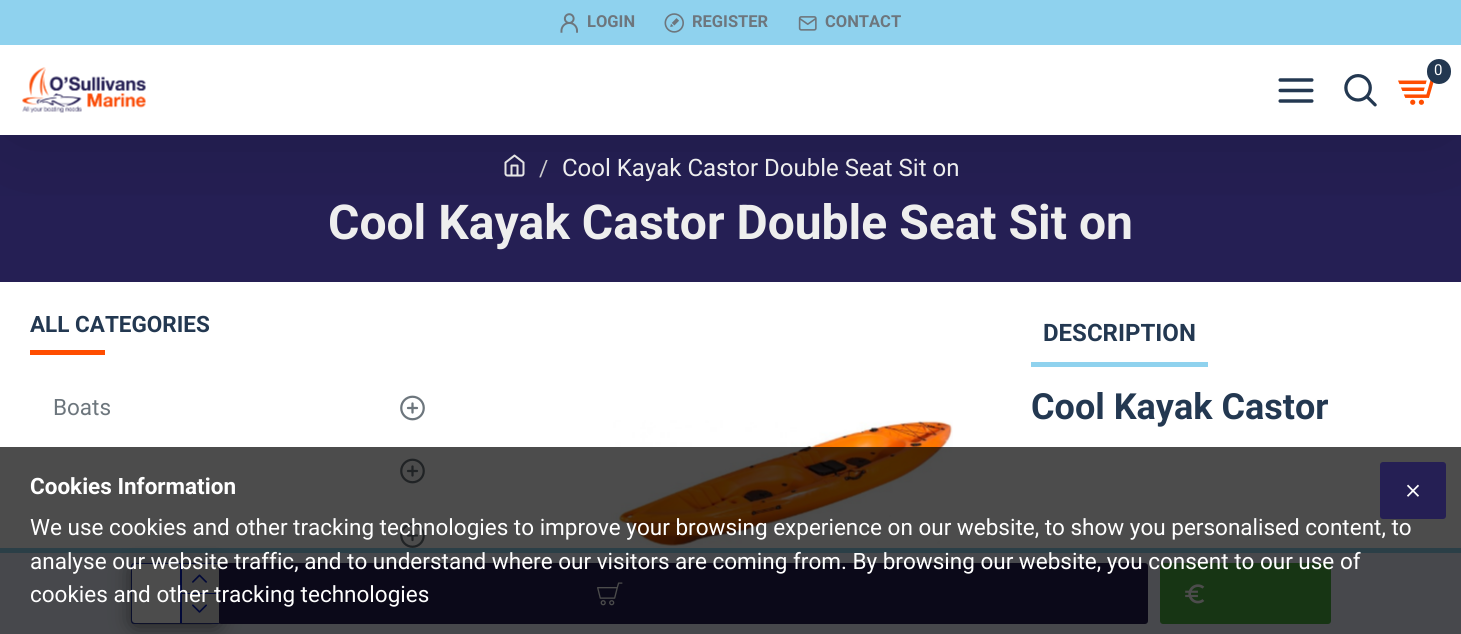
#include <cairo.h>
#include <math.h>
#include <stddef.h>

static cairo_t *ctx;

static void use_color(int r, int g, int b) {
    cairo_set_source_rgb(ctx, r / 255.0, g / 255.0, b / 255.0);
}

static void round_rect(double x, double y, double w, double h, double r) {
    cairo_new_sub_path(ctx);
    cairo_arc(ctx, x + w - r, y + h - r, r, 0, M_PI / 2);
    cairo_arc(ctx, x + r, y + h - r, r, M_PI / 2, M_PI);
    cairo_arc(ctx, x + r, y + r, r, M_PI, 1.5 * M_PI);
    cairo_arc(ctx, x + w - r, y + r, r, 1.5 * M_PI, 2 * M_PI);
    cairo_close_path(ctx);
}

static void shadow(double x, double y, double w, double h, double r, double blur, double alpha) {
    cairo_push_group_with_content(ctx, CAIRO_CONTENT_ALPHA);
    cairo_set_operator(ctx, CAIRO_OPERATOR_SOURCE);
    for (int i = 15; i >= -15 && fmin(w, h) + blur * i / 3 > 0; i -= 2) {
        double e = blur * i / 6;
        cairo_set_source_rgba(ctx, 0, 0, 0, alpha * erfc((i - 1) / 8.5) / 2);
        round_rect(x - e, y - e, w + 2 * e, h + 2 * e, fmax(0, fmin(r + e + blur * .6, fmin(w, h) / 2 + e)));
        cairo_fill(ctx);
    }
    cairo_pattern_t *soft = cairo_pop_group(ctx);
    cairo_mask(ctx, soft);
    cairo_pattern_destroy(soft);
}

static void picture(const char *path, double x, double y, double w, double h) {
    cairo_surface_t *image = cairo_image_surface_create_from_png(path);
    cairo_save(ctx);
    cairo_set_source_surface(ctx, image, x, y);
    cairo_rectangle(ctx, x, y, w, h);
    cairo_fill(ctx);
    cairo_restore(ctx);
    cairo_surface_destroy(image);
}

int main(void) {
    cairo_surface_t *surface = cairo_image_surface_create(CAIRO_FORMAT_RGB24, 1461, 634);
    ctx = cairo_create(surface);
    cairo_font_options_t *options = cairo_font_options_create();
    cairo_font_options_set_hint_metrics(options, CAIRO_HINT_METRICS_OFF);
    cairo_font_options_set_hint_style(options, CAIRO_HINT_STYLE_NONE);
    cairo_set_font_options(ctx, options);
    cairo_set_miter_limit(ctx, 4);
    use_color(255, 255, 255);
    cairo_paint(ctx);
    use_color(37, 31, 84);
    cairo_rectangle(ctx, 0, 135, 1461, 147);
    cairo_fill(ctx);
    picture("img8.png", 504, 154, 21, 23);
    cairo_save(ctx);
    cairo_rectangle(ctx, 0, 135, 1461, 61);
    cairo_clip(ctx);
    use_color(0, 0, 0);
    shadow(15, 60, 1431, 60, 0, 64, 0.2);
    cairo_restore(ctx);
    use_color(143, 210, 238);
    cairo_rectangle(ctx, 0, 0, 1461, 45);
    cairo_fill(ctx);
    picture("img1.png", 560, 13, 18, 20);
    cairo_select_font_face(ctx, "Roboto", CAIRO_FONT_SLANT_NORMAL, CAIRO_FONT_WEIGHT_BOLD);
    cairo_set_font_size(ctx, 16.5);
    use_color(109, 118, 125);
    cairo_move_to(ctx, 587, 27);
    cairo_show_text(ctx, "LOGIN");
    picture("img2.png", 664, 13, 20, 20);
    cairo_move_to(ctx, 692, 27);
    cairo_show_text(ctx, "REGISTER");
    picture("img3.png", 798, 16, 19, 15);
    cairo_move_to(ctx, 825, 27);
    cairo_show_text(ctx, "CONTACT");
    picture("img4.png", 22, 67, 124, 46);
    picture("img5.png", 1398, 79, 36, 26);
    use_color(35, 56, 81);
    round_rect(1427, 59, 24, 25, 12);
    cairo_fill(ctx);
    cairo_select_font_face(ctx, "Roboto", CAIRO_FONT_SLANT_NORMAL, CAIRO_FONT_WEIGHT_NORMAL);
    cairo_set_font_size(ctx, 15);
    use_color(255, 255, 255);
    cairo_move_to(ctx, 1434, 75);
    cairo_show_text(ctx, "0");
    picture("img6.png", 1278, 78, 36, 25);
    picture("img7.png", 1344, 74, 33, 33);
    cairo_set_font_size(ctx, 22.5);
    use_color(204, 204, 204);
    cairo_move_to(ctx, 539, 176);
    cairo_show_text(ctx, "/");
    cairo_set_font_size(ctx, 24);
    use_color(238, 238, 238);
    cairo_move_to(ctx, 562, 176);
    cairo_show_text(ctx, "Cool Kayak Castor Double Seat Sit on");
    cairo_select_font_face(ctx, "Roboto", CAIRO_FONT_SLANT_NORMAL, CAIRO_FONT_WEIGHT_BOLD);
    cairo_set_font_size(ctx, 48);
    cairo_move_to(ctx, 328, 239);
    cairo_show_text(ctx, "Cool Kayak Castor Double Seat Sit on");
    cairo_set_font_size(ctx, 22.5);
    use_color(35, 56, 81);
    cairo_move_to(ctx, 30, 332);
    cairo_show_text(ctx, "ALL CATEGORIES");
    use_color(255, 77, 0);
    cairo_rectangle(ctx, 30, 350, 75, 5);
    cairo_fill(ctx);
    cairo_select_font_face(ctx, "Roboto", CAIRO_FONT_SLANT_NORMAL, CAIRO_FONT_WEIGHT_NORMAL);
    use_color(109, 118, 125);
    cairo_move_to(ctx, 53, 415);
    cairo_show_text(ctx, "Boats");
    picture("img9.png", 400, 395, 25, 26);
    picture("img9.png", 400, 458, 25, 26);
    picture("img10.png", 400, 523, 25, 25);
    use_color(143, 210, 238);
    cairo_rectangle(ctx, 1031, 362, 177, 5);
    cairo_fill(ctx);
    cairo_select_font_face(ctx, "Roboto", CAIRO_FONT_SLANT_NORMAL, CAIRO_FONT_WEIGHT_BOLD);
    cairo_set_font_size(ctx, 24);
    use_color(35, 56, 81);
    cairo_move_to(ctx, 1043, 341);
    cairo_show_text(ctx, "DESCRIPTION");
    cairo_set_font_size(ctx, 36);
    cairo_move_to(ctx, 1031, 419);
    cairo_show_text(ctx, "Cool Kayak Castor");
    use_color(237, 242, 254);
    cairo_rectangle(ctx, 0, 553, 1461, 81);
    cairo_fill(ctx);
    use_color(143, 210, 238);
    cairo_rectangle(ctx, 0, 548, 1461, 5);
    cairo_fill(ctx);
    round_rect(132, 564, 88, 59, 2);
    use_color(6, 30, 187);
    cairo_stroke(ctx);
    use_color(85, 85, 85);
    shadow(135, 570, 81, 53, 0, 11, 1);
    use_color(255, 255, 255);
    round_rect(132, 564, 87, 59, 3);
    cairo_fill(ctx);
    use_color(6, 30, 187);
    cairo_rectangle(ctx, 180, 564, 2, 59);
    cairo_fill(ctx);
    use_color(37, 31, 84);
    round_rect(218, 563, 930, 61, 3);
    cairo_fill(ctx);
    use_color(221, 221, 221);
    cairo_rectangle(ctx, 182, 564, 37, 29);
    cairo_fill(ctx);
    use_color(6, 30, 187);
    cairo_rectangle(ctx, 182, 593, 37, 1);
    cairo_fill(ctx);
    picture("img11.png", 192, 574, 15, 9);
    use_color(221, 221, 221);
    cairo_rectangle(ctx, 182, 594, 37, 29);
    cairo_fill(ctx);
    picture("img12.png", 192, 604, 15, 9);
    picture("img13.png", 597, 582, 26, 24);
    use_color(78, 177, 66);
    round_rect(1160, 563, 171, 61, 3);
    cairo_fill(ctx);
    picture("img14.png", 1185, 584, 20, 20);
    picture("img15.png", 611, 420, 342, 128);
    cairo_set_source_rgba(ctx, 0, 0, 0, 0.7);
    cairo_rectangle(ctx, 0, 447, 1461, 187);
    cairo_fill(ctx);
    cairo_set_font_size(ctx, 22.5);
    use_color(255, 255, 255);
    cairo_move_to(ctx, 30, 494);
    cairo_show_text(ctx, "Cookies Information");
    cairo_select_font_face(ctx, "Roboto", CAIRO_FONT_SLANT_NORMAL, CAIRO_FONT_WEIGHT_NORMAL);
    cairo_move_to(ctx, 30, 535);
    cairo_show_text(ctx, "We use cookies and other tracking technologies to improve your browsing experience on our website, to show you personalised content, to");
    cairo_move_to(ctx, 30, 569);
    cairo_show_text(ctx, "analyse our website traffic, and to understand where our visitors are coming from. By browsing our website, you consent to our use of");
    cairo_move_to(ctx, 30, 602);
    cairo_show_text(ctx, "cookies and other tracking technologies");
    use_color(37, 31, 84);
    round_rect(1380, 462, 66, 57, 3);
    cairo_fill(ctx);
    picture("img16.png", 1407, 484, 12, 13);
    cairo_surface_write_to_png(surface, "result.png");
    cairo_font_options_destroy(options);
    cairo_destroy(ctx);
    cairo_surface_destroy(surface);
    return 0;
}
